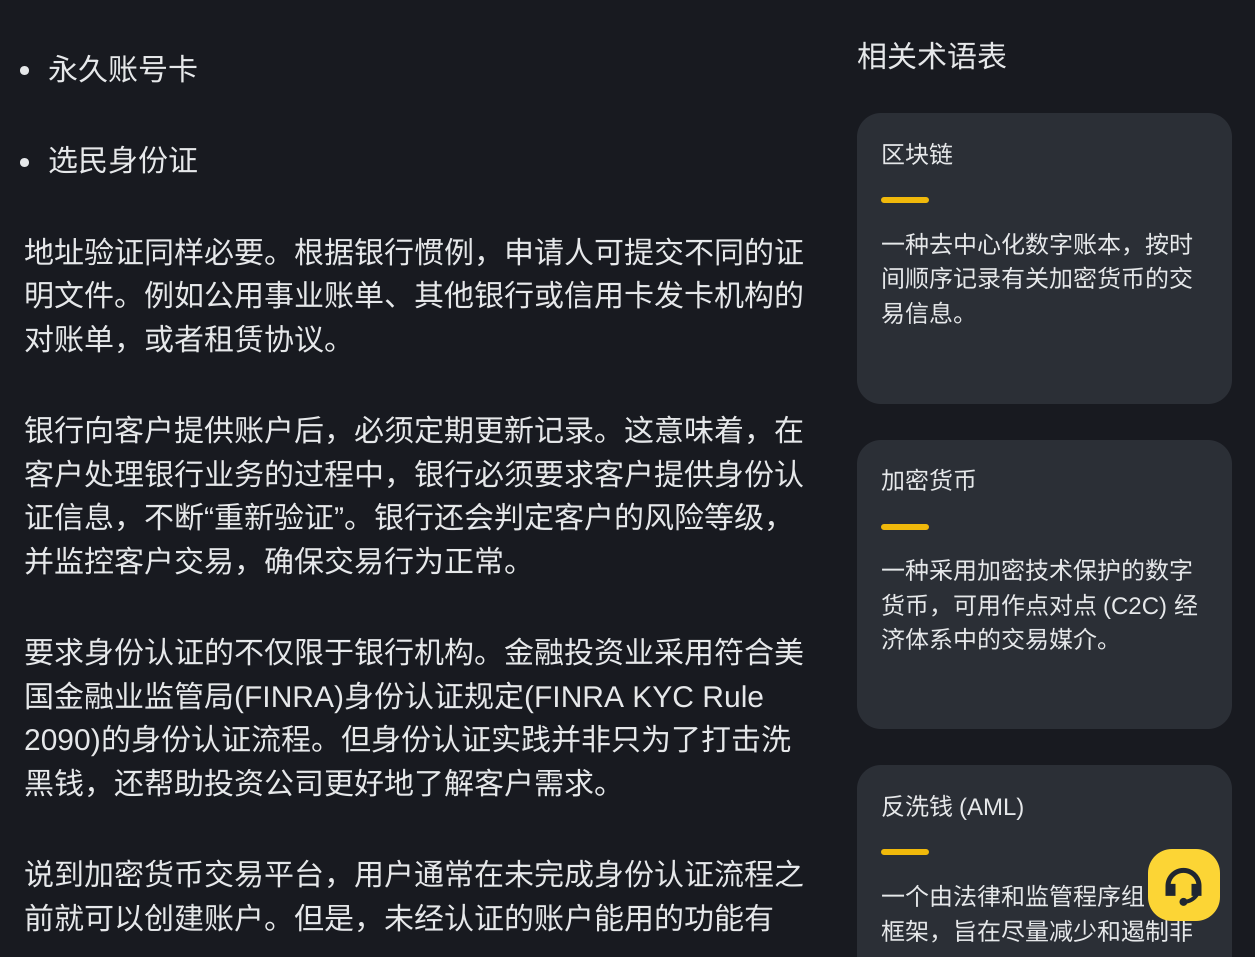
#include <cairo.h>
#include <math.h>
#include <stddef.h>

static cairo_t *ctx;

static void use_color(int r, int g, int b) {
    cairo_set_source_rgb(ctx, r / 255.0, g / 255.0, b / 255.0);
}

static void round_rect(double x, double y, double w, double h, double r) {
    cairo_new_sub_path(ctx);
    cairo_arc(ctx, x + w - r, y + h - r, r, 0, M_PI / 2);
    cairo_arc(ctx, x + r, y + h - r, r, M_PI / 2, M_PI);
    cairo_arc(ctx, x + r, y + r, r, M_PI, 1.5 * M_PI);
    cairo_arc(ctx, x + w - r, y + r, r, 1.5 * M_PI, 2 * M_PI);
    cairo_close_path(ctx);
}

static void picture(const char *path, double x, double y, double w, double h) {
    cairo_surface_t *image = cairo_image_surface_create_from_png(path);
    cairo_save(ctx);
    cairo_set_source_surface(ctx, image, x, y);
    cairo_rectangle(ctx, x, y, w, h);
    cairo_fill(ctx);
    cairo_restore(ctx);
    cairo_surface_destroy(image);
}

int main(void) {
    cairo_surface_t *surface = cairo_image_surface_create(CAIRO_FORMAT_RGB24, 1255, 957);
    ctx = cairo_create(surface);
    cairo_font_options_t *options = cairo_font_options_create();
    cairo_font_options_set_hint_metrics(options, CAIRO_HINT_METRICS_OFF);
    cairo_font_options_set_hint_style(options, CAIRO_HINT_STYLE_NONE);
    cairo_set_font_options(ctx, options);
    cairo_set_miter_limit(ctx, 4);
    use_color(24, 26, 32);
    cairo_paint(ctx);
    use_color(230, 232, 234);
    cairo_arc(ctx, 24.5, 70.5, 4.5, 0, 2 * M_PI);
    cairo_fill(ctx);
    cairo_select_font_face(ctx, "Noto Sans CJK SC", CAIRO_FONT_SLANT_NORMAL, CAIRO_FONT_WEIGHT_NORMAL);
    cairo_set_font_size(ctx, 30);
    cairo_move_to(ctx, 48, 80);
    cairo_show_text(ctx, "永久账号卡");
    cairo_new_path(ctx);
    cairo_arc(ctx, 24.5, 162.5, 4.5, 0, 2 * M_PI);
    cairo_fill(ctx);
    cairo_move_to(ctx, 48, 171);
    cairo_show_text(ctx, "选民身份证");
    cairo_move_to(ctx, 24, 263);
    cairo_show_text(ctx, "地址验证同样必要。根据银行惯例，申请人可提交不同的证");
    cairo_move_to(ctx, 24, 306);
    cairo_show_text(ctx, "明文件。例如公用事业账单、其他银行或信用卡发卡机构的");
    cairo_move_to(ctx, 24, 350);
    cairo_show_text(ctx, "对账单，或者租赁协议。");
    cairo_move_to(ctx, 24, 441);
    cairo_show_text(ctx, "银行向客户提供账户后，必须定期更新记录。这意味着，在");
    cairo_move_to(ctx, 24, 485);
    cairo_show_text(ctx, "客户处理银行业务的过程中，银行必须要求客户提供身份认");
    cairo_move_to(ctx, 24, 528);
    cairo_show_text(ctx, "证信息，不断");
    cairo_select_font_face(ctx, "Liberation Sans", CAIRO_FONT_SLANT_NORMAL, CAIRO_FONT_WEIGHT_NORMAL);
    cairo_move_to(ctx, 204, 528);
    cairo_show_text(ctx, "“");
    cairo_select_font_face(ctx, "Noto Sans CJK SC", CAIRO_FONT_SLANT_NORMAL, CAIRO_FONT_WEIGHT_NORMAL);
    cairo_move_to(ctx, 214, 528);
    cairo_show_text(ctx, "重新验证");
    cairo_select_font_face(ctx, "Liberation Sans", CAIRO_FONT_SLANT_NORMAL, CAIRO_FONT_WEIGHT_NORMAL);
    cairo_move_to(ctx, 334, 528);
    cairo_show_text(ctx, "”");
    cairo_select_font_face(ctx, "Noto Sans CJK SC", CAIRO_FONT_SLANT_NORMAL, CAIRO_FONT_WEIGHT_NORMAL);
    cairo_move_to(ctx, 344, 528);
    cairo_show_text(ctx, "。银行还会判定客户的风险等级，");
    cairo_move_to(ctx, 24, 572);
    cairo_show_text(ctx, "并监控客户交易，确保交易行为正常。");
    cairo_move_to(ctx, 24, 663);
    cairo_show_text(ctx, "要求身份认证的不仅限于银行机构。金融投资业采用符合美");
    cairo_move_to(ctx, 24, 707);
    cairo_show_text(ctx, "国金融业监管局");
    cairo_select_font_face(ctx, "Liberation Sans", CAIRO_FONT_SLANT_NORMAL, CAIRO_FONT_WEIGHT_NORMAL);
    cairo_move_to(ctx, 234, 707);
    cairo_show_text(ctx, "(FINRA)");
    cairo_select_font_face(ctx, "Noto Sans CJK SC", CAIRO_FONT_SLANT_NORMAL, CAIRO_FONT_WEIGHT_NORMAL);
    cairo_move_to(ctx, 344, 707);
    cairo_show_text(ctx, "身份认证规定");
    cairo_select_font_face(ctx, "Liberation Sans", CAIRO_FONT_SLANT_NORMAL, CAIRO_FONT_WEIGHT_NORMAL);
    cairo_move_to(ctx, 524, 707);
    cairo_show_text(ctx, "(FINRA KYC Rule");
    cairo_move_to(ctx, 24, 750);
    cairo_show_text(ctx, "2090)");
    cairo_select_font_face(ctx, "Noto Sans CJK SC", CAIRO_FONT_SLANT_NORMAL, CAIRO_FONT_WEIGHT_NORMAL);
    cairo_move_to(ctx, 101, 750);
    cairo_show_text(ctx, "的身份认证流程。但身份认证实践并非只为了打击洗");
    cairo_move_to(ctx, 24, 794);
    cairo_show_text(ctx, "黑钱，还帮助投资公司更好地了解客户需求。");
    cairo_move_to(ctx, 24, 885);
    cairo_show_text(ctx, "说到加密货币交易平台，用户通常在未完成身份认证流程之");
    cairo_move_to(ctx, 24, 929);
    cairo_show_text(ctx, "前就可以创建账户。但是，未经认证的账户能用的功能有");
    cairo_move_to(ctx, 857, 67);
    cairo_show_text(ctx, "相关术语表");
    use_color(43, 47, 54);
    round_rect(857, 113, 375, 291, 24);
    cairo_fill(ctx);
    cairo_set_font_size(ctx, 24);
    use_color(230, 232, 234);
    cairo_move_to(ctx, 881, 163);
    cairo_show_text(ctx, "区块链");
    use_color(240, 185, 11);
    round_rect(881, 197, 48, 6, 3);
    cairo_fill(ctx);
    use_color(230, 232, 234);
    cairo_move_to(ctx, 881, 253);
    cairo_show_text(ctx, "一种去中心化数字账本，按时");
    cairo_move_to(ctx, 881, 287);
    cairo_show_text(ctx, "间顺序记录有关加密货币的交");
    cairo_move_to(ctx, 881, 322);
    cairo_show_text(ctx, "易信息。");
    use_color(43, 47, 54);
    round_rect(857, 440, 375, 289, 24);
    cairo_fill(ctx);
    use_color(230, 232, 234);
    cairo_move_to(ctx, 881, 489);
    cairo_show_text(ctx, "加密货币");
    use_color(240, 185, 11);
    round_rect(881, 524, 48, 6, 3);
    cairo_fill(ctx);
    use_color(230, 232, 234);
    cairo_move_to(ctx, 881, 579);
    cairo_show_text(ctx, "一种采用加密技术保护的数字");
    cairo_move_to(ctx, 881, 614);
    cairo_show_text(ctx, "货币，可用作点对点");
    cairo_select_font_face(ctx, "Liberation Sans", CAIRO_FONT_SLANT_NORMAL, CAIRO_FONT_WEIGHT_NORMAL);
    cairo_move_to(ctx, 1103, 614);
    cairo_show_text(ctx, "(C2C)");
    cairo_select_font_face(ctx, "Noto Sans CJK SC", CAIRO_FONT_SLANT_NORMAL, CAIRO_FONT_WEIGHT_NORMAL);
    cairo_move_to(ctx, 1174, 614);
    cairo_show_text(ctx, "经");
    cairo_move_to(ctx, 881, 648);
    cairo_show_text(ctx, "济体系中的交易媒介。");
    use_color(43, 47, 54);
    round_rect(857, 765, 375, 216, 24);
    cairo_fill(ctx);
    use_color(230, 232, 234);
    cairo_move_to(ctx, 881, 815);
    cairo_show_text(ctx, "反洗钱");
    cairo_select_font_face(ctx, "Liberation Sans", CAIRO_FONT_SLANT_NORMAL, CAIRO_FONT_WEIGHT_NORMAL);
    cairo_move_to(ctx, 959, 815);
    cairo_show_text(ctx, "(AML)");
    use_color(240, 185, 11);
    round_rect(881, 849, 48, 6, 3);
    cairo_fill(ctx);
    cairo_select_font_face(ctx, "Noto Sans CJK SC", CAIRO_FONT_SLANT_NORMAL, CAIRO_FONT_WEIGHT_NORMAL);
    use_color(230, 232, 234);
    cairo_move_to(ctx, 881, 905);
    cairo_show_text(ctx, "一个由法律和监管程序组");
    cairo_move_to(ctx, 881, 940);
    cairo_show_text(ctx, "框架，旨在尽量减少和遏制非");
    use_color(252, 213, 53);
    round_rect(1148, 849, 72, 72, 24);
    cairo_fill(ctx);
    picture("img1.png", 1165, 867, 37, 39);
    cairo_surface_write_to_png(surface, "result.png");
    cairo_font_options_destroy(options);
    cairo_destroy(ctx);
    cairo_surface_destroy(surface);
    return 0;
}
